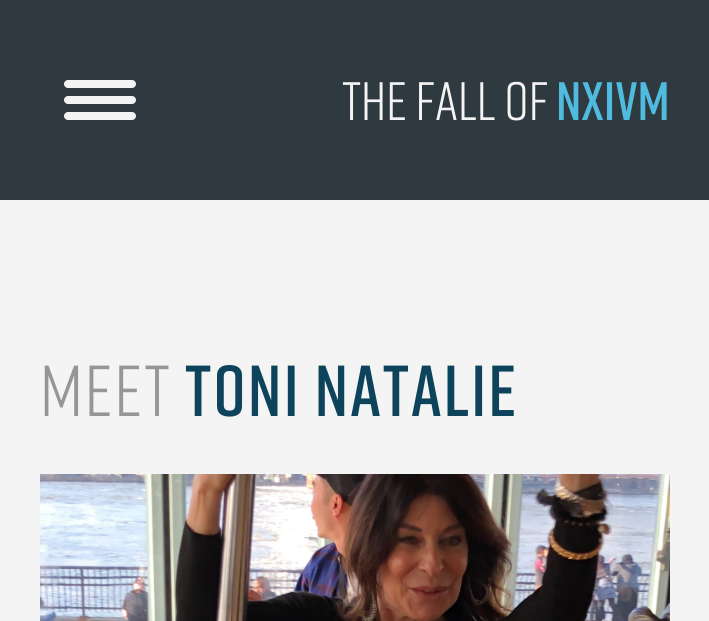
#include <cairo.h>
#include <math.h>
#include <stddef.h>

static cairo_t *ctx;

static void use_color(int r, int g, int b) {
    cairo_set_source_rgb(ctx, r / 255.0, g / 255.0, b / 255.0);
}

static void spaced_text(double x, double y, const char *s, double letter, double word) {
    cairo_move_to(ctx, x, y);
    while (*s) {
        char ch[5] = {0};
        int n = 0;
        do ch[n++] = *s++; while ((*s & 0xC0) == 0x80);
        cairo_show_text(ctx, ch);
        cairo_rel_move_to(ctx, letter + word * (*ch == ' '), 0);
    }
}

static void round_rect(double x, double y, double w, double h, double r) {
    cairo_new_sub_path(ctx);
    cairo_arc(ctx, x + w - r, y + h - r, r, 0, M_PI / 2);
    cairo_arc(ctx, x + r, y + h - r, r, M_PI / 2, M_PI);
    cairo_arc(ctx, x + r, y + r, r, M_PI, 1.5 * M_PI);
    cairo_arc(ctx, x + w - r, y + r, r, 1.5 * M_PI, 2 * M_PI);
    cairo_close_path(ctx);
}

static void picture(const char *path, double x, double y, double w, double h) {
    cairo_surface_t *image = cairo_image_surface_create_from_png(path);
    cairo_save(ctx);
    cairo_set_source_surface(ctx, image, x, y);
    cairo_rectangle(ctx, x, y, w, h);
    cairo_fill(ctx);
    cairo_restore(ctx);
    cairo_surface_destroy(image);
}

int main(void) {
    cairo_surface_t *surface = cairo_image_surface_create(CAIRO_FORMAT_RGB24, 709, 621);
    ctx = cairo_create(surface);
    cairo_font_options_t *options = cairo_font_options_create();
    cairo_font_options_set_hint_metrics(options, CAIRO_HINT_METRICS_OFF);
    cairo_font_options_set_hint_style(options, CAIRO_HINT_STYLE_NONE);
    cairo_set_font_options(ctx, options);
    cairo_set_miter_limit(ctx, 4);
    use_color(244, 244, 244);
    cairo_paint(ctx);
    use_color(47, 58, 64);
    cairo_rectangle(ctx, 0, 0, 709, 200);
    cairo_fill(ctx);
    use_color(244, 244, 244);
    round_rect(64, 80, 72, 8, 4);
    cairo_fill(ctx);
    round_rect(64, 96, 72, 8, 4);
    cairo_fill(ctx);
    round_rect(64, 112, 72, 8, 4);
    cairo_fill(ctx);
    cairo_select_font_face(ctx, "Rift", CAIRO_FONT_SLANT_NORMAL, CAIRO_FONT_WEIGHT_NORMAL);
    cairo_set_font_size(ctx, 54);
    cairo_move_to(ctx, 342, 120);
    cairo_show_text(ctx, "The Fall of");
    cairo_select_font_face(ctx, "Rift SemiBold", CAIRO_FONT_SLANT_NORMAL, CAIRO_FONT_WEIGHT_NORMAL);
    use_color(79, 187, 223);
    cairo_move_to(ctx, 556, 120);
    cairo_show_text(ctx, "NXIVM");
    cairo_select_font_face(ctx, "Rift", CAIRO_FONT_SLANT_NORMAL, CAIRO_FONT_WEIGHT_NORMAL);
    cairo_set_font_size(ctx, 72);
    use_color(150, 150, 150);
    spaced_text(40, 416, "Meet", 2, 0);
    cairo_select_font_face(ctx, "Rift SemiBold", CAIRO_FONT_SLANT_NORMAL, CAIRO_FONT_WEIGHT_NORMAL);
    use_color(13, 68, 91);
    spaced_text(185, 416, "Toni Natalie", 2, 0);
    picture("img1.png", 40, 474, 630, 147);
    cairo_surface_write_to_png(surface, "result.png");
    cairo_font_options_destroy(options);
    cairo_destroy(ctx);
    cairo_surface_destroy(surface);
    return 0;
}
